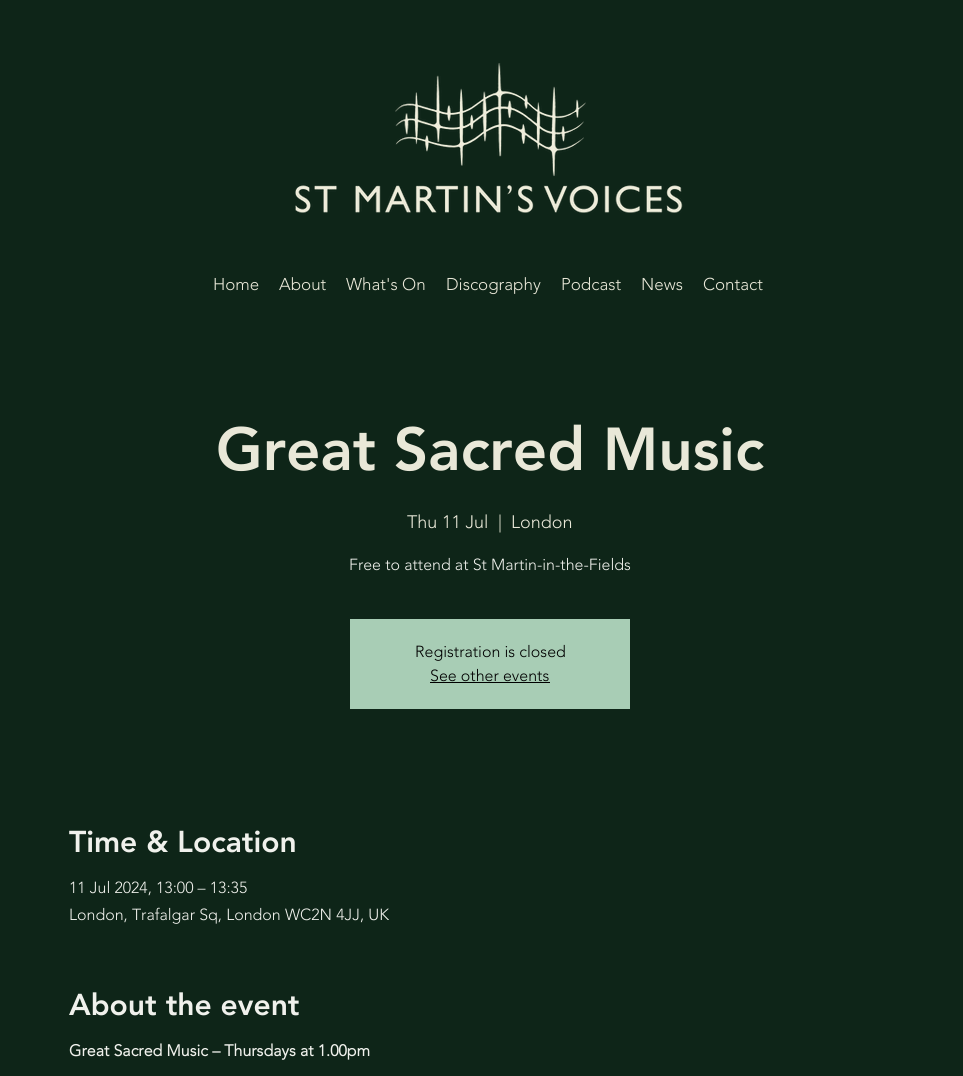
#include <cairo.h>
#include <math.h>
#include <stddef.h>

static cairo_t *ctx;

static void use_color(int r, int g, int b) {
    cairo_set_source_rgb(ctx, r / 255.0, g / 255.0, b / 255.0);
}

static void picture(const char *path, double x, double y, double w, double h) {
    cairo_surface_t *image = cairo_image_surface_create_from_png(path);
    cairo_save(ctx);
    cairo_set_source_surface(ctx, image, x, y);
    cairo_rectangle(ctx, x, y, w, h);
    cairo_fill(ctx);
    cairo_restore(ctx);
    cairo_surface_destroy(image);
}

int main(void) {
    cairo_surface_t *surface = cairo_image_surface_create(CAIRO_FORMAT_RGB24, 963, 1076);
    ctx = cairo_create(surface);
    cairo_font_options_t *options = cairo_font_options_create();
    cairo_font_options_set_hint_metrics(options, CAIRO_HINT_METRICS_OFF);
    cairo_font_options_set_hint_style(options, CAIRO_HINT_STYLE_NONE);
    cairo_set_font_options(ctx, options);
    cairo_set_miter_limit(ctx, 4);
    use_color(14, 37, 24);
    cairo_paint(ctx);
    picture("img1.png", 295, 63, 388, 150);
    cairo_select_font_face(ctx, "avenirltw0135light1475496 Light", CAIRO_FONT_SLANT_NORMAL, CAIRO_FONT_WEIGHT_NORMAL);
    cairo_set_font_size(ctx, 17);
    use_color(233, 232, 216);
    cairo_move_to(ctx, 213, 290);
    cairo_show_text(ctx, "Home");
    cairo_move_to(ctx, 279, 290);
    cairo_show_text(ctx, "About");
    cairo_move_to(ctx, 346, 290);
    cairo_show_text(ctx, "What's On");
    cairo_move_to(ctx, 446, 290);
    cairo_show_text(ctx, "Discography");
    cairo_move_to(ctx, 561, 290);
    cairo_show_text(ctx, "Podcast");
    cairo_move_to(ctx, 641, 290);
    cairo_show_text(ctx, "News");
    cairo_move_to(ctx, 703, 290);
    cairo_show_text(ctx, "Contact");
    cairo_select_font_face(ctx, "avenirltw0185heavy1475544 Black", CAIRO_FONT_SLANT_NORMAL, CAIRO_FONT_WEIGHT_NORMAL);
    cairo_set_font_size(ctx, 60);
    cairo_move_to(ctx, 216, 470);
    cairo_show_text(ctx, "Great Sacred Music");
    cairo_select_font_face(ctx, "avenirltw0135light1475496 Light", CAIRO_FONT_SLANT_NORMAL, CAIRO_FONT_WEIGHT_NORMAL);
    cairo_set_font_size(ctx, 18);
    cairo_move_to(ctx, 407, 528);
    cairo_show_text(ctx, "Thu 11 Jul");
    cairo_move_to(ctx, 498, 528);
    cairo_show_text(ctx, "|");
    cairo_move_to(ctx, 511, 528);
    cairo_show_text(ctx, "London");
    cairo_set_font_size(ctx, 16);
    use_color(240, 241, 236);
    cairo_move_to(ctx, 349, 570);
    cairo_show_text(ctx, "Free to attend at St Martin-in-the-Fields");
    use_color(168, 205, 181);
    cairo_rectangle(ctx, 350, 619, 280, 90);
    cairo_fill(ctx);
    use_color(0, 0, 0);
    cairo_move_to(ctx, 415, 657);
    cairo_show_text(ctx, "Registration is closed");
    cairo_move_to(ctx, 430, 681);
    cairo_show_text(ctx, "See other events");
    cairo_rectangle(ctx, 430, 682, 120, 1);
    cairo_fill(ctx);
    cairo_select_font_face(ctx, "avenirltw0185heavy1475544 Black", CAIRO_FONT_SLANT_NORMAL, CAIRO_FONT_WEIGHT_NORMAL);
    cairo_set_font_size(ctx, 30);
    use_color(240, 241, 236);
    cairo_move_to(ctx, 69, 852);
    cairo_show_text(ctx, "Time & Location");
    cairo_select_font_face(ctx, "avenirltw0135light1475496 Light", CAIRO_FONT_SLANT_NORMAL, CAIRO_FONT_WEIGHT_NORMAL);
    cairo_set_font_size(ctx, 16);
    cairo_move_to(ctx, 69, 893);
    cairo_show_text(ctx, "11 Jul 2024, 13:00 – 13:35");
    cairo_move_to(ctx, 69, 920);
    cairo_show_text(ctx, "London, Trafalgar Sq, London WC2N 4JJ, UK");
    cairo_select_font_face(ctx, "avenirltw0185heavy1475544 Black", CAIRO_FONT_SLANT_NORMAL, CAIRO_FONT_WEIGHT_NORMAL);
    cairo_set_font_size(ctx, 30);
    cairo_move_to(ctx, 69, 1015);
    cairo_show_text(ctx, "About the event");
    cairo_select_font_face(ctx, "avenirltw0135light1475496", CAIRO_FONT_SLANT_NORMAL, CAIRO_FONT_WEIGHT_BOLD);
    cairo_set_font_size(ctx, 16);
    cairo_move_to(ctx, 69, 1056);
    cairo_show_text(ctx, "Great Sacred Music – Thursdays at 1.00pm");
    cairo_surface_write_to_png(surface, "result.png");
    cairo_font_options_destroy(options);
    cairo_destroy(ctx);
    cairo_surface_destroy(surface);
    return 0;
}
